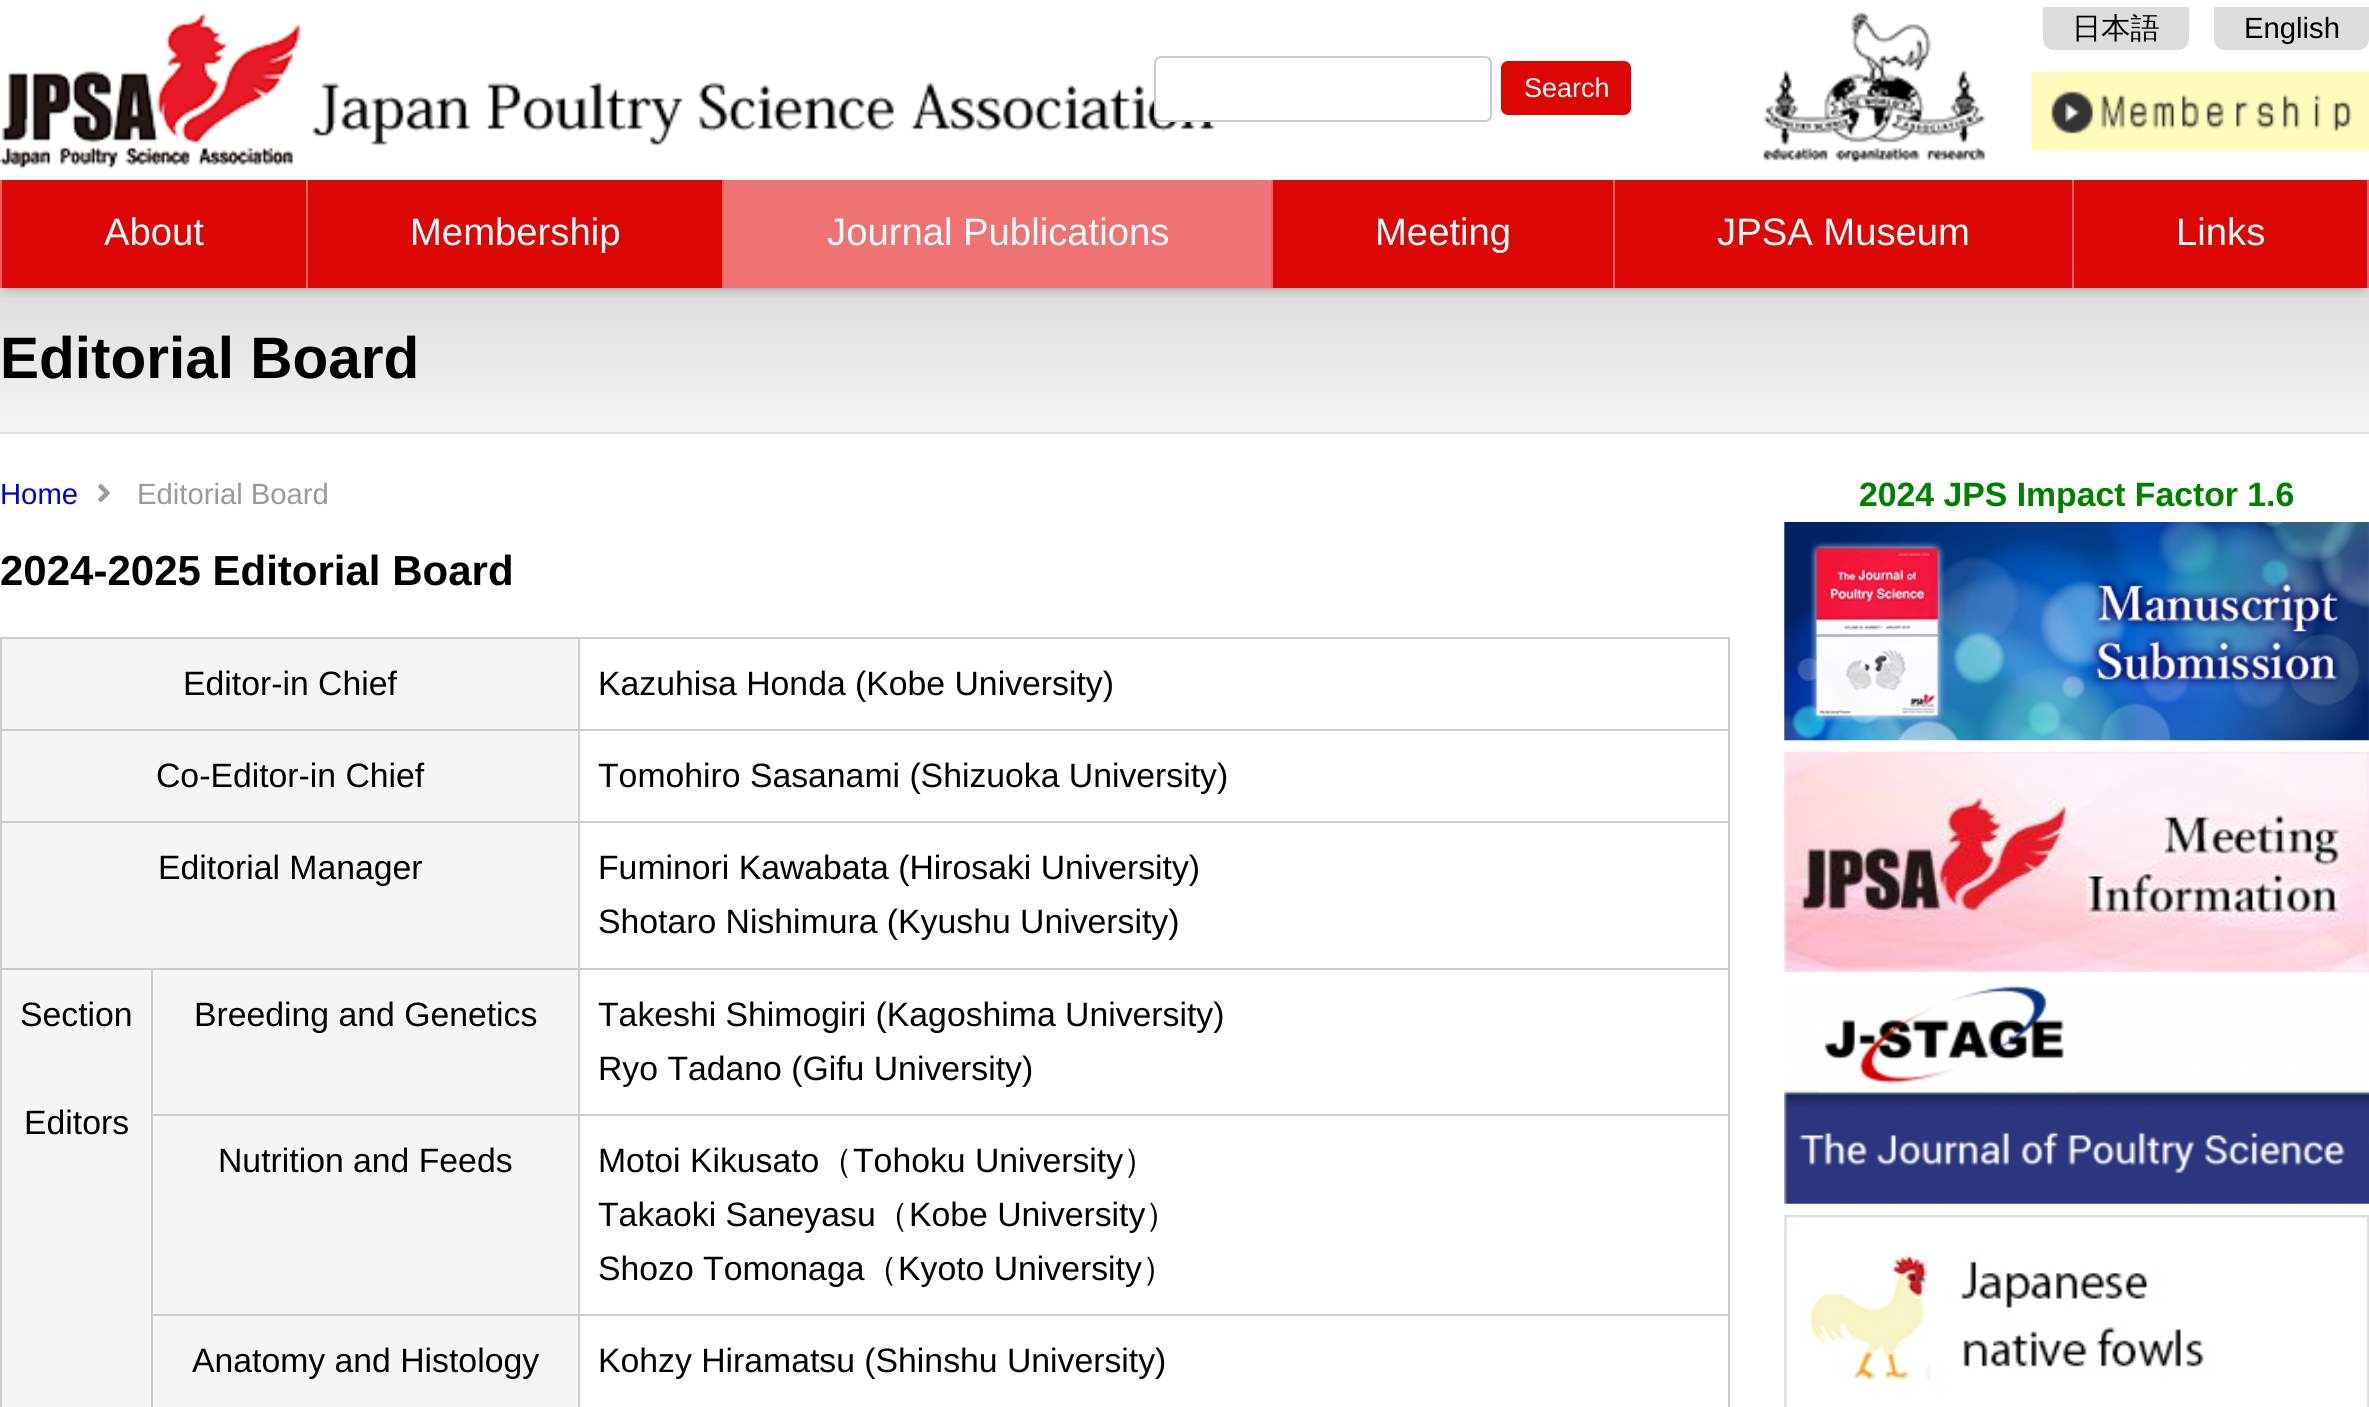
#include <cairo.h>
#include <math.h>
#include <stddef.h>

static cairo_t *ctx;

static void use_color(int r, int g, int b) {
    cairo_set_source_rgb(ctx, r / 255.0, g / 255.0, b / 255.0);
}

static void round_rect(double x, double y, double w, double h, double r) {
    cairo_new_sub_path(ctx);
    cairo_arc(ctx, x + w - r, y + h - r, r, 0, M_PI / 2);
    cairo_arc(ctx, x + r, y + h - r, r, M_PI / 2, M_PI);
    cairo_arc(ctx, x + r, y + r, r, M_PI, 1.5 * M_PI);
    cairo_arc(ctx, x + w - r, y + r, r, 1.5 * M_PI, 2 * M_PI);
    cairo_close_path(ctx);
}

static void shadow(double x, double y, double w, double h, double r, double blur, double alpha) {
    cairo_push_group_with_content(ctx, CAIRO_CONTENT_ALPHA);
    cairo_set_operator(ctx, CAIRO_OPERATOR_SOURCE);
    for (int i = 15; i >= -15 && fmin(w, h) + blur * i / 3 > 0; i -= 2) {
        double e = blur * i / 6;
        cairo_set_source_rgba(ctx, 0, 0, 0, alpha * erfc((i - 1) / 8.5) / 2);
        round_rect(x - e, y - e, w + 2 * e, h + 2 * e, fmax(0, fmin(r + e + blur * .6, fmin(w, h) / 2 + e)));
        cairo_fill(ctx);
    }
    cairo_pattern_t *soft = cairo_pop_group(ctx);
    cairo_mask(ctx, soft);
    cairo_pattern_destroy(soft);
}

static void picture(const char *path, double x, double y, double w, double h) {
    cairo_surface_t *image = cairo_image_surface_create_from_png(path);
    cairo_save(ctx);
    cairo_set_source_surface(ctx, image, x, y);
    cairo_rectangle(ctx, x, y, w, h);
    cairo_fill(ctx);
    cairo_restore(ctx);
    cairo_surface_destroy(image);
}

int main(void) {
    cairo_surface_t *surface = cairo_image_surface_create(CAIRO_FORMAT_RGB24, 2369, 1407);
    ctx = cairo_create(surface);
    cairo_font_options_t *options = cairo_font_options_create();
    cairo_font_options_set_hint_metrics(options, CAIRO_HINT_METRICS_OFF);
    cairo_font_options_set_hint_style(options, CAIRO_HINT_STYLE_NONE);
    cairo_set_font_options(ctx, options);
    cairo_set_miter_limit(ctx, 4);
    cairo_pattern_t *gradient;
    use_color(255, 255, 255);
    cairo_paint(ctx);
    gradient = cairo_pattern_create_linear(1185, 288, 1185, 432);
    cairo_pattern_add_color_stop_rgba(gradient, 0, 0.867, 0.867, 0.867, 1);
    cairo_pattern_add_color_stop_rgba(gradient, 1, 0.961, 0.961, 0.961, 1);
    cairo_set_source(ctx, gradient);
    cairo_pattern_destroy(gradient);
    cairo_rectangle(ctx, 0, 288, 2369, 144);
    cairo_fill(ctx);
    cairo_save(ctx);
    cairo_rectangle(ctx, 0, 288, 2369, 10);
    cairo_clip(ctx);
    use_color(0, 0, 0);
    shadow(7, 14, 2356, 274, 0, 7, 0.3);
    cairo_restore(ctx);
    picture("img1.png", 0, 12, 1215, 157);
    picture("img2.png", 1763, 11, 223, 152);
    use_color(221, 221, 221);
    cairo_new_path(ctx);
    cairo_move_to(ctx, 2043, 7);
    cairo_line_to(ctx, 2189, 7);
    cairo_line_to(ctx, 2189, 39);
    cairo_curve_to(ctx, 2189, 45, 2184, 50, 2178, 50);
    cairo_line_to(ctx, 2054, 50);
    cairo_curve_to(ctx, 2048, 50, 2043, 45, 2043, 39);
    cairo_close_path(ctx);
    cairo_fill(ctx);
    cairo_select_font_face(ctx, "WenQuanYi Zen Hei Medium", CAIRO_FONT_SLANT_NORMAL, CAIRO_FONT_WEIGHT_NORMAL);
    cairo_set_font_size(ctx, 29.25);
    use_color(0, 0, 0);
    cairo_move_to(ctx, 2072, 38);
    cairo_show_text(ctx, "日本語");
    use_color(221, 221, 221);
    cairo_new_path(ctx);
    cairo_move_to(ctx, 2214, 7);
    cairo_line_to(ctx, 2369, 7);
    cairo_line_to(ctx, 2369, 39);
    cairo_curve_to(ctx, 2369, 45, 2364, 50, 2358, 50);
    cairo_line_to(ctx, 2225, 50);
    cairo_curve_to(ctx, 2219, 50, 2214, 45, 2214, 39);
    cairo_close_path(ctx);
    cairo_fill(ctx);
    cairo_select_font_face(ctx, "Liberation Sans", CAIRO_FONT_SLANT_NORMAL, CAIRO_FONT_WEIGHT_NORMAL);
    use_color(0, 0, 0);
    cairo_move_to(ctx, 2244, 38);
    cairo_show_text(ctx, "English");
    use_color(255, 255, 255);
    round_rect(1155, 57, 336, 64, 6);
    cairo_fill_preserve(ctx);
    use_color(204, 204, 204);
    cairo_stroke(ctx);
    use_color(220, 6, 4);
    round_rect(1501, 61, 130, 54, 7);
    cairo_fill(ctx);
    cairo_set_font_size(ctx, 27);
    use_color(255, 255, 255);
    cairo_move_to(ctx, 1524, 97);
    cairo_show_text(ctx, "Search");
    picture("img3.png", 2031, 71, 338, 81);
    use_color(220, 6, 4);
    cairo_rectangle(ctx, 2, 180, 2365, 108);
    cairo_fill(ctx);
    use_color(232, 97, 97);
    cairo_rectangle(ctx, 0, 180, 2, 108);
    cairo_fill(ctx);
    cairo_set_font_size(ctx, 38.25);
    use_color(255, 255, 255);
    cairo_move_to(ctx, 104, 245);
    cairo_show_text(ctx, "About");
    use_color(232, 97, 97);
    cairo_rectangle(ctx, 306, 180, 2, 108);
    cairo_fill(ctx);
    use_color(255, 255, 255);
    cairo_move_to(ctx, 410, 245);
    cairo_show_text(ctx, "Membership");
    use_color(238, 115, 114);
    cairo_rectangle(ctx, 724, 180, 547, 108);
    cairo_fill(ctx);
    use_color(232, 97, 97);
    cairo_rectangle(ctx, 722, 180, 2, 108);
    cairo_fill(ctx);
    use_color(255, 255, 255);
    cairo_move_to(ctx, 827, 245);
    cairo_show_text(ctx, "Journal Publications");
    use_color(232, 97, 97);
    cairo_rectangle(ctx, 1271, 180, 2, 108);
    cairo_fill(ctx);
    use_color(255, 255, 255);
    cairo_move_to(ctx, 1375, 245);
    cairo_show_text(ctx, "Meeting");
    use_color(232, 97, 97);
    cairo_rectangle(ctx, 1613, 180, 2, 108);
    cairo_fill(ctx);
    use_color(255, 255, 255);
    cairo_move_to(ctx, 1717, 245);
    cairo_show_text(ctx, "JPSA Museum");
    use_color(232, 97, 97);
    cairo_rectangle(ctx, 2367, 180, 2, 108);
    cairo_fill(ctx);
    cairo_rectangle(ctx, 2072, 180, 2, 108);
    cairo_fill(ctx);
    use_color(255, 255, 255);
    cairo_move_to(ctx, 2176, 245);
    cairo_show_text(ctx, "Links");
    use_color(227, 227, 227);
    cairo_rectangle(ctx, 0, 432, 2369, 2);
    cairo_fill(ctx);
    cairo_select_font_face(ctx, "Liberation Sans", CAIRO_FONT_SLANT_NORMAL, CAIRO_FONT_WEIGHT_BOLD);
    cairo_set_font_size(ctx, 58.5);
    use_color(0, 0, 0);
    cairo_move_to(ctx, 0, 378);
    cairo_show_text(ctx, "Editorial Board");
    cairo_select_font_face(ctx, "Liberation Sans", CAIRO_FONT_SLANT_NORMAL, CAIRO_FONT_WEIGHT_NORMAL);
    cairo_set_font_size(ctx, 29.25);
    use_color(0, 0, 205);
    cairo_move_to(ctx, 0, 504);
    cairo_show_text(ctx, "Home");
    picture("img4.png", 98, 483, 12, 20);
    use_color(153, 153, 153);
    cairo_move_to(ctx, 137, 504);
    cairo_show_text(ctx, "Editorial Board");
    cairo_select_font_face(ctx, "Liberation Sans", CAIRO_FONT_SLANT_NORMAL, CAIRO_FONT_WEIGHT_BOLD);
    cairo_set_font_size(ctx, 42);
    use_color(0, 0, 0);
    cairo_move_to(ctx, 0, 585);
    cairo_show_text(ctx, "2024-2025 Editorial Board");
    use_color(204, 204, 204);
    cairo_rectangle(ctx, 0, 637, 1730, 2);
    cairo_fill(ctx);
    cairo_rectangle(ctx, 1728, 637, 2, 770);
    cairo_fill(ctx);
    cairo_rectangle(ctx, 0, 637, 2, 770);
    cairo_fill(ctx);
    use_color(245, 245, 245);
    cairo_rectangle(ctx, 2, 639, 576, 90);
    cairo_fill(ctx);
    cairo_select_font_face(ctx, "Liberation Sans", CAIRO_FONT_SLANT_NORMAL, CAIRO_FONT_WEIGHT_NORMAL);
    cairo_set_font_size(ctx, 33.75);
    use_color(0, 0, 0);
    cairo_move_to(ctx, 183, 695);
    cairo_show_text(ctx, "Editor-in Chief");
    use_color(204, 204, 204);
    cairo_rectangle(ctx, 578, 729, 1152, 2);
    cairo_fill(ctx);
    cairo_rectangle(ctx, 578, 821, 1152, 2);
    cairo_fill(ctx);
    cairo_rectangle(ctx, 578, 968, 1152, 2);
    cairo_fill(ctx);
    cairo_rectangle(ctx, 578, 1114, 1152, 2);
    cairo_fill(ctx);
    cairo_rectangle(ctx, 578, 1314, 1152, 2);
    cairo_fill(ctx);
    cairo_rectangle(ctx, 578, 1314, 2, 93);
    cairo_fill(ctx);
    cairo_rectangle(ctx, 151, 1314, 430, 2);
    cairo_fill(ctx);
    cairo_rectangle(ctx, 578, 1114, 2, 202);
    cairo_fill(ctx);
    cairo_rectangle(ctx, 151, 1114, 430, 2);
    cairo_fill(ctx);
    cairo_rectangle(ctx, 578, 968, 2, 148);
    cairo_fill(ctx);
    cairo_rectangle(ctx, 151, 968, 430, 2);
    cairo_fill(ctx);
    cairo_rectangle(ctx, 578, 821, 2, 149);
    cairo_fill(ctx);
    cairo_rectangle(ctx, 0, 821, 581, 2);
    cairo_fill(ctx);
    cairo_rectangle(ctx, 578, 729, 2, 95);
    cairo_fill(ctx);
    cairo_rectangle(ctx, 0, 729, 581, 2);
    cairo_fill(ctx);
    cairo_rectangle(ctx, 578, 637, 2, 94);
    cairo_fill(ctx);
    use_color(0, 0, 0);
    cairo_move_to(ctx, 598, 695);
    cairo_show_text(ctx, "Kazuhisa Honda (Kobe University)");
    use_color(245, 245, 245);
    cairo_rectangle(ctx, 2, 731, 576, 90);
    cairo_fill(ctx);
    use_color(0, 0, 0);
    cairo_move_to(ctx, 156, 787);
    cairo_show_text(ctx, "Co-Editor-in Chief");
    cairo_move_to(ctx, 598, 787);
    cairo_show_text(ctx, "Tomohiro Sasanami (Shizuoka University)");
    use_color(245, 245, 245);
    cairo_rectangle(ctx, 2, 823, 576, 145);
    cairo_fill(ctx);
    use_color(0, 0, 0);
    cairo_move_to(ctx, 158, 879);
    cairo_show_text(ctx, "Editorial Manager");
    cairo_move_to(ctx, 598, 879);
    cairo_show_text(ctx, "Fuminori Kawabata (Hirosaki University)");
    cairo_move_to(ctx, 598, 933);
    cairo_show_text(ctx, "Shotaro Nishimura (Kyushu University)");
    use_color(245, 245, 245);
    cairo_rectangle(ctx, 2, 970, 149, 437);
    cairo_fill(ctx);
    use_color(204, 204, 204);
    cairo_rectangle(ctx, 151, 1314, 2, 93);
    cairo_fill(ctx);
    cairo_rectangle(ctx, 151, 1114, 2, 202);
    cairo_fill(ctx);
    cairo_rectangle(ctx, 151, 968, 2, 148);
    cairo_fill(ctx);
    cairo_rectangle(ctx, 0, 968, 153, 2);
    cairo_fill(ctx);
    use_color(0, 0, 0);
    cairo_move_to(ctx, 20, 1026);
    cairo_show_text(ctx, "Section");
    cairo_move_to(ctx, 24, 1134);
    cairo_show_text(ctx, "Editors");
    use_color(245, 245, 245);
    cairo_rectangle(ctx, 153, 970, 425, 144);
    cairo_fill(ctx);
    use_color(0, 0, 0);
    cairo_move_to(ctx, 194, 1026);
    cairo_show_text(ctx, "Breeding and Genetics");
    cairo_move_to(ctx, 598, 1026);
    cairo_show_text(ctx, "Takeshi Shimogiri (Kagoshima University)");
    cairo_move_to(ctx, 598, 1080);
    cairo_show_text(ctx, "Ryo Tadano (Gifu University)");
    use_color(245, 245, 245);
    cairo_rectangle(ctx, 153, 1116, 425, 198);
    cairo_fill(ctx);
    use_color(0, 0, 0);
    cairo_move_to(ctx, 218, 1172);
    cairo_show_text(ctx, "Nutrition and Feeds");
    cairo_move_to(ctx, 598, 1172);
    cairo_show_text(ctx, "Motoi Kikusato");
    cairo_select_font_face(ctx, "WenQuanYi Zen Hei Medium", CAIRO_FONT_SLANT_NORMAL, CAIRO_FONT_WEIGHT_NORMAL);
    cairo_move_to(ctx, 819, 1172);
    cairo_show_text(ctx, "（");
    cairo_select_font_face(ctx, "Liberation Sans", CAIRO_FONT_SLANT_NORMAL, CAIRO_FONT_WEIGHT_NORMAL);
    cairo_move_to(ctx, 853, 1172);
    cairo_show_text(ctx, "Tohoku University");
    cairo_select_font_face(ctx, "WenQuanYi Zen Hei Medium", CAIRO_FONT_SLANT_NORMAL, CAIRO_FONT_WEIGHT_NORMAL);
    cairo_move_to(ctx, 1123, 1172);
    cairo_show_text(ctx, "）");
    cairo_select_font_face(ctx, "Liberation Sans", CAIRO_FONT_SLANT_NORMAL, CAIRO_FONT_WEIGHT_NORMAL);
    cairo_move_to(ctx, 598, 1226);
    cairo_show_text(ctx, "Takaoki Saneyasu");
    cairo_select_font_face(ctx, "WenQuanYi Zen Hei Medium", CAIRO_FONT_SLANT_NORMAL, CAIRO_FONT_WEIGHT_NORMAL);
    cairo_move_to(ctx, 875, 1226);
    cairo_show_text(ctx, "（");
    cairo_select_font_face(ctx, "Liberation Sans", CAIRO_FONT_SLANT_NORMAL, CAIRO_FONT_WEIGHT_NORMAL);
    cairo_move_to(ctx, 909, 1226);
    cairo_show_text(ctx, "Kobe University");
    cairo_select_font_face(ctx, "WenQuanYi Zen Hei Medium", CAIRO_FONT_SLANT_NORMAL, CAIRO_FONT_WEIGHT_NORMAL);
    cairo_move_to(ctx, 1145, 1226);
    cairo_show_text(ctx, "）");
    cairo_select_font_face(ctx, "Liberation Sans", CAIRO_FONT_SLANT_NORMAL, CAIRO_FONT_WEIGHT_NORMAL);
    cairo_move_to(ctx, 598, 1280);
    cairo_show_text(ctx, "Shozo Tomonaga");
    cairo_select_font_face(ctx, "WenQuanYi Zen Hei Medium", CAIRO_FONT_SLANT_NORMAL, CAIRO_FONT_WEIGHT_NORMAL);
    cairo_move_to(ctx, 864, 1280);
    cairo_show_text(ctx, "（");
    cairo_select_font_face(ctx, "Liberation Sans", CAIRO_FONT_SLANT_NORMAL, CAIRO_FONT_WEIGHT_NORMAL);
    cairo_move_to(ctx, 898, 1280);
    cairo_show_text(ctx, "Kyoto University");
    cairo_select_font_face(ctx, "WenQuanYi Zen Hei Medium", CAIRO_FONT_SLANT_NORMAL, CAIRO_FONT_WEIGHT_NORMAL);
    cairo_move_to(ctx, 1142, 1280);
    cairo_show_text(ctx, "）");
    use_color(245, 245, 245);
    cairo_rectangle(ctx, 153, 1316, 425, 91);
    cairo_fill(ctx);
    cairo_select_font_face(ctx, "Liberation Sans", CAIRO_FONT_SLANT_NORMAL, CAIRO_FONT_WEIGHT_NORMAL);
    use_color(0, 0, 0);
    cairo_move_to(ctx, 192, 1372);
    cairo_show_text(ctx, "Anatomy and Histology");
    cairo_move_to(ctx, 598, 1372);
    cairo_show_text(ctx, "Kohzy Hiramatsu (Shinshu University)");
    cairo_select_font_face(ctx, "Liberation Sans", CAIRO_FONT_SLANT_NORMAL, CAIRO_FONT_WEIGHT_BOLD);
    use_color(0, 128, 0);
    cairo_move_to(ctx, 1859, 506);
    cairo_show_text(ctx, "2024 JPS Impact Factor 1.6");
    picture("img5.png", 1784, 522, 585, 219);
    picture("img6.png", 1784, 751, 585, 221);
    picture("img7.png", 1784, 985, 585, 219);
    picture("img8.png", 1784, 1215, 585, 192);
    cairo_surface_write_to_png(surface, "result.png");
    cairo_font_options_destroy(options);
    cairo_destroy(ctx);
    cairo_surface_destroy(surface);
    return 0;
}
